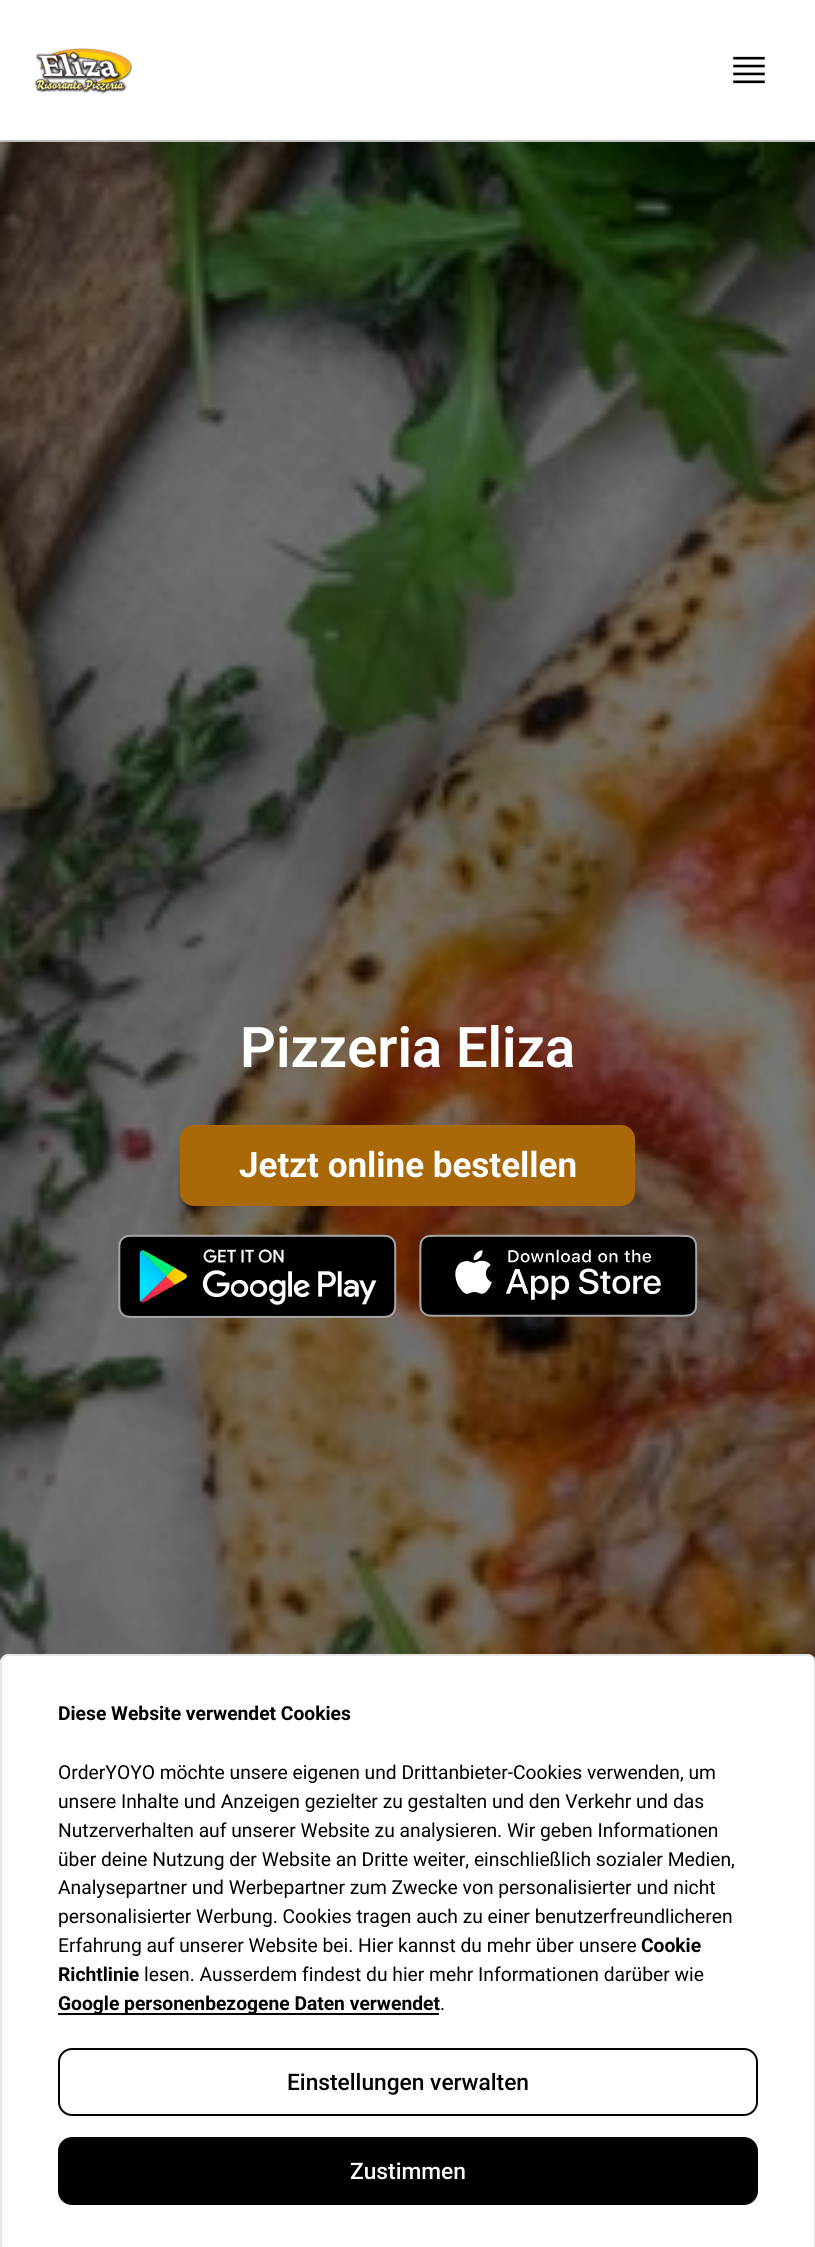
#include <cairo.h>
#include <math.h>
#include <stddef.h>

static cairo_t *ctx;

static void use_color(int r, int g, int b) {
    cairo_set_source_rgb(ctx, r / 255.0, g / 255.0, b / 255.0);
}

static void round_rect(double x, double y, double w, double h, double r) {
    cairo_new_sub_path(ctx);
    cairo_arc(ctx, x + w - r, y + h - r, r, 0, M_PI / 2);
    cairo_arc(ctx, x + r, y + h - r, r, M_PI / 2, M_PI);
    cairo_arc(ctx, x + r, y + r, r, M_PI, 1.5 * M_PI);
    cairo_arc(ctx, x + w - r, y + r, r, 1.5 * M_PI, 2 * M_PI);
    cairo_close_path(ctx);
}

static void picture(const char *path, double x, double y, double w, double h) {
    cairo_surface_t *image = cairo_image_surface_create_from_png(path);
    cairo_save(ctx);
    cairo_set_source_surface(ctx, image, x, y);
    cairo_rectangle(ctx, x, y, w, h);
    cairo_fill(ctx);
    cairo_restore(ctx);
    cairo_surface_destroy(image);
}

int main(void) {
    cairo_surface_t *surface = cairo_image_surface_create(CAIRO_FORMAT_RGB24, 815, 2247);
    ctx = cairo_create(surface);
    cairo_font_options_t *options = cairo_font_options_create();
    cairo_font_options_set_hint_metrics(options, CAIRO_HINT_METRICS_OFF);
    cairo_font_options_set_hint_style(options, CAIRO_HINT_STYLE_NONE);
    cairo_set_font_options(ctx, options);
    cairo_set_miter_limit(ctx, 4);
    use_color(255, 255, 255);
    cairo_paint(ctx);
    use_color(191, 191, 191);
    cairo_rectangle(ctx, 0, 140, 815, 2);
    cairo_fill(ctx);
    picture("img1.png", 34, 48, 99, 46);
    picture("img2.png", 733, 56, 32, 28);
    picture("img3.png", 0, 142, 815, 1520);
    cairo_select_font_face(ctx, "Roboto SemiBold", CAIRO_FONT_SLANT_NORMAL, CAIRO_FONT_WEIGHT_NORMAL);
    cairo_set_font_size(ctx, 56);
    use_color(255, 255, 255);
    cairo_move_to(ctx, 240, 1067);
    cairo_show_text(ctx, "Pizzeria Eliza");
    use_color(169, 105, 9);
    round_rect(181, 1126, 453, 79, 13);
    cairo_fill_preserve(ctx);
    cairo_stroke(ctx);
    cairo_select_font_face(ctx, "Roboto", CAIRO_FONT_SLANT_NORMAL, CAIRO_FONT_WEIGHT_BOLD);
    cairo_set_font_size(ctx, 35);
    use_color(255, 255, 255);
    cairo_move_to(ctx, 239, 1177);
    cairo_show_text(ctx, "Jetzt online bestellen");
    picture("img4.png", 118, 1234, 279, 84);
    picture("img5.png", 419, 1234, 279, 83);
    cairo_new_path(ctx);
    cairo_move_to(ctx, 9, 1654);
    cairo_line_to(ctx, 807, 1654);
    cairo_curve_to(ctx, 812, 1654, 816, 1658, 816, 1663);
    cairo_line_to(ctx, 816, 2247);
    cairo_line_to(ctx, 0, 2247);
    cairo_line_to(ctx, 0, 1663);
    cairo_curve_to(ctx, 0, 1658, 4, 1654, 9, 1654);
    cairo_close_path(ctx);
    cairo_fill(ctx);
    use_color(229, 229, 229);
    cairo_set_fill_rule(ctx, CAIRO_FILL_RULE_EVEN_ODD);
    cairo_new_path(ctx);
    cairo_move_to(ctx, 9, 1654);
    cairo_line_to(ctx, 807, 1654);
    cairo_curve_to(ctx, 812, 1654, 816, 1658, 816, 1662);
    cairo_line_to(ctx, 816, 2247);
    cairo_line_to(ctx, 0, 2247);
    cairo_line_to(ctx, 0, 1662);
    cairo_curve_to(ctx, 0, 1658, 4, 1654, 9, 1654);
    cairo_close_path(ctx);
    cairo_move_to(ctx, 9, 1656);
    cairo_line_to(ctx, 807, 1656);
    cairo_curve_to(ctx, 811, 1656, 814, 1659, 814, 1662);
    cairo_line_to(ctx, 814, 2247);
    cairo_line_to(ctx, 2, 2247);
    cairo_line_to(ctx, 2, 1662);
    cairo_curve_to(ctx, 2, 1659, 5, 1656, 9, 1656);
    cairo_close_path(ctx);
    cairo_fill(ctx);
    cairo_set_font_size(ctx, 19.25);
    use_color(0, 0, 0);
    cairo_move_to(ctx, 58, 1720);
    cairo_show_text(ctx, "Diese Website verwendet Cookies");
    cairo_select_font_face(ctx, "Roboto", CAIRO_FONT_SLANT_NORMAL, CAIRO_FONT_WEIGHT_NORMAL);
    cairo_move_to(ctx, 58, 1779);
    cairo_show_text(ctx, "OrderYOYO möchte unsere eigenen und Drittanbieter-Cookies verwenden, um");
    cairo_move_to(ctx, 58, 1808);
    cairo_show_text(ctx, "unsere Inhalte und Anzeigen gezielter zu gestalten und den Verkehr und das");
    cairo_move_to(ctx, 58, 1837);
    cairo_show_text(ctx, "Nutzerverhalten auf unserer Website zu analysieren. Wir geben Informationen");
    cairo_move_to(ctx, 58, 1866);
    cairo_show_text(ctx, "über deine Nutzung der Website an Dritte weiter, einschließlich sozialer Medien,");
    cairo_move_to(ctx, 58, 1894);
    cairo_show_text(ctx, "Analysepartner und Werbepartner zum Zwecke von personalisierter und nicht");
    cairo_move_to(ctx, 58, 1923);
    cairo_show_text(ctx, "personalisierter Werbung. Cookies tragen auch zu einer benutzerfreundlicheren");
    cairo_move_to(ctx, 58, 1952);
    cairo_show_text(ctx, "Erfahrung auf unserer Website bei. Hier kannst du mehr über unsere");
    cairo_select_font_face(ctx, "Roboto", CAIRO_FONT_SLANT_NORMAL, CAIRO_FONT_WEIGHT_BOLD);
    cairo_move_to(ctx, 641, 1952);
    cairo_show_text(ctx, "Cookie");
    cairo_move_to(ctx, 58, 1981);
    cairo_show_text(ctx, "Richtlinie");
    cairo_select_font_face(ctx, "Roboto", CAIRO_FONT_SLANT_NORMAL, CAIRO_FONT_WEIGHT_NORMAL);
    cairo_move_to(ctx, 144, 1981);
    cairo_show_text(ctx, "lesen. Ausserdem findest du hier mehr Informationen darüber wie");
    cairo_rectangle(ctx, 58, 2013, 381, 2);
    cairo_fill(ctx);
    cairo_select_font_face(ctx, "Roboto", CAIRO_FONT_SLANT_NORMAL, CAIRO_FONT_WEIGHT_BOLD);
    cairo_move_to(ctx, 58, 2010);
    cairo_show_text(ctx, "Google personenbezogene Daten verwendet");
    cairo_select_font_face(ctx, "Roboto", CAIRO_FONT_SLANT_NORMAL, CAIRO_FONT_WEIGHT_NORMAL);
    cairo_move_to(ctx, 440, 2010);
    cairo_show_text(ctx, ".");
    round_rect(59, 2049, 698, 66, 13);
    cairo_stroke(ctx);
    cairo_select_font_face(ctx, "Roboto Medium", CAIRO_FONT_SLANT_NORMAL, CAIRO_FONT_WEIGHT_NORMAL);
    cairo_set_font_size(ctx, 22.75);
    cairo_move_to(ctx, 287, 2090);
    cairo_show_text(ctx, "Einstellungen verwalten");
    round_rect(59, 2138, 698, 66, 13);
    cairo_fill_preserve(ctx);
    cairo_stroke(ctx);
    use_color(255, 255, 255);
    cairo_move_to(ctx, 350, 2179);
    cairo_show_text(ctx, "Zustimmen");
    cairo_surface_write_to_png(surface, "result.png");
    cairo_font_options_destroy(options);
    cairo_destroy(ctx);
    cairo_surface_destroy(surface);
    return 0;
}
